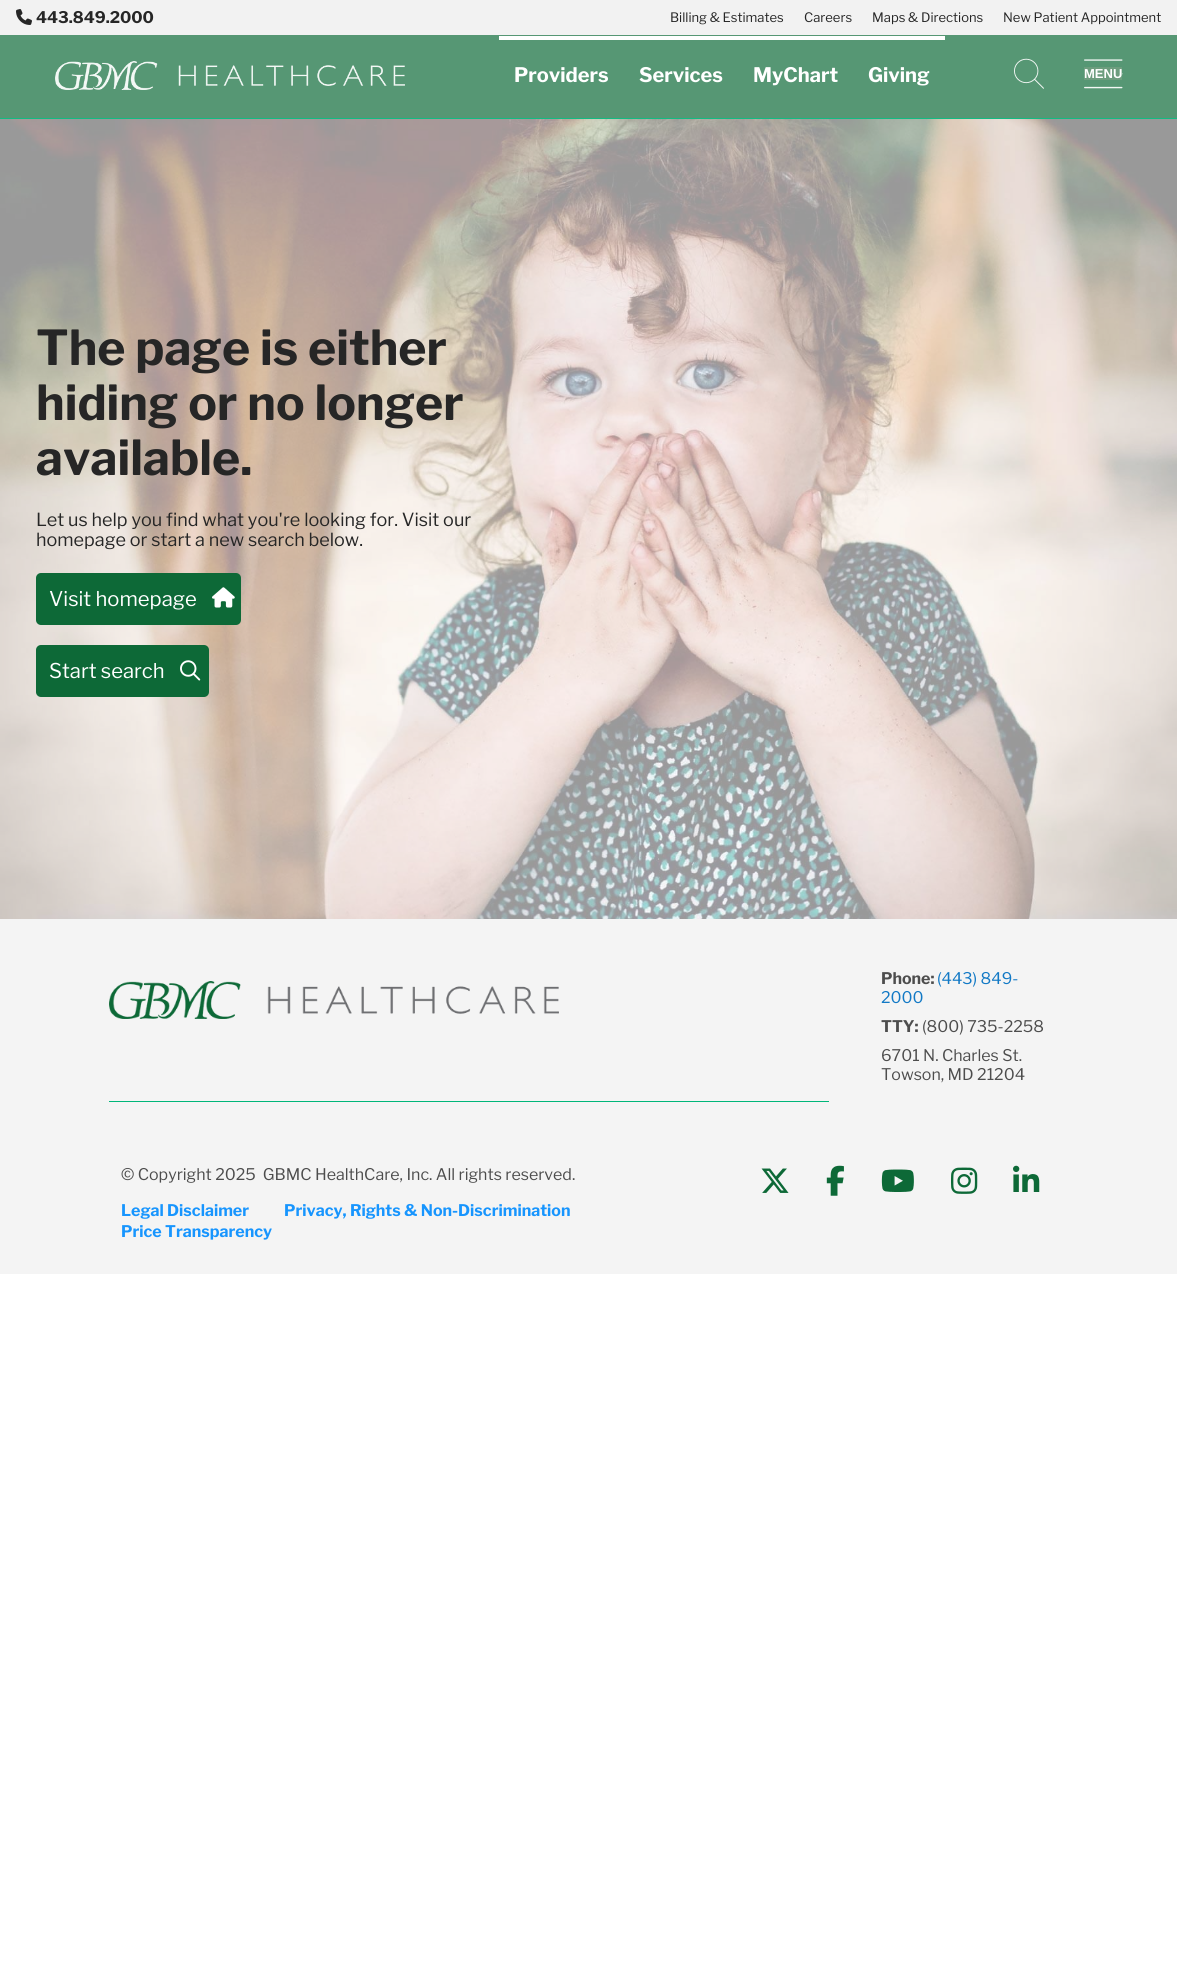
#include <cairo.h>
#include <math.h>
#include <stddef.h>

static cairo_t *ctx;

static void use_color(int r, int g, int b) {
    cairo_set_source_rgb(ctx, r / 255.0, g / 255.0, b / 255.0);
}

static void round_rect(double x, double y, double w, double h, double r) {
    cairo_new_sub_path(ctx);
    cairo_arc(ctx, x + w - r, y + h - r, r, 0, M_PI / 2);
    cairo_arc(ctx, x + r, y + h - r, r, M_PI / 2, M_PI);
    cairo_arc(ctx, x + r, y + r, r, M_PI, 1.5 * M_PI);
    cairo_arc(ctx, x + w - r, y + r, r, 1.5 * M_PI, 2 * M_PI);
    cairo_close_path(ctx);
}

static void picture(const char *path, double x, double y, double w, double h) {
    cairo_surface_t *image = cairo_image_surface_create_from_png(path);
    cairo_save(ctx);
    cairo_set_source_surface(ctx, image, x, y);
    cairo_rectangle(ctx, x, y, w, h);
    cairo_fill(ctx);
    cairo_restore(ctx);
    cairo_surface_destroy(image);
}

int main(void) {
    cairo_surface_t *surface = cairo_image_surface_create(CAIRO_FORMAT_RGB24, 1177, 1983);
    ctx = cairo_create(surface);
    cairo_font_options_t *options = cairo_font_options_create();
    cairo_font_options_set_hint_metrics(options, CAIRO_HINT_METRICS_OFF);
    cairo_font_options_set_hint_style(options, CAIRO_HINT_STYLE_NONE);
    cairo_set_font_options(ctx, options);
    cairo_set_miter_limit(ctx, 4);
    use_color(255, 255, 255);
    cairo_paint(ctx);
    use_color(242, 242, 242);
    cairo_rectangle(ctx, 0, 0, 1177, 35);
    cairo_fill(ctx);
    picture("img1.png", 16, 9, 16, 16);
    cairo_select_font_face(ctx, "Libre Franklin", CAIRO_FONT_SLANT_NORMAL, CAIRO_FONT_WEIGHT_BOLD);
    cairo_set_font_size(ctx, 16);
    use_color(38, 38, 38);
    cairo_move_to(ctx, 36, 23);
    cairo_show_text(ctx, "443.849.2000");
    cairo_select_font_face(ctx, "Libre Franklin", CAIRO_FONT_SLANT_NORMAL, CAIRO_FONT_WEIGHT_NORMAL);
    cairo_set_font_size(ctx, 13);
    cairo_move_to(ctx, 670, 22);
    cairo_show_text(ctx, "Billing & Estimates");
    cairo_move_to(ctx, 804, 22);
    cairo_show_text(ctx, "Careers");
    cairo_move_to(ctx, 872, 22);
    cairo_show_text(ctx, "Maps & Directions");
    cairo_move_to(ctx, 1003, 22);
    cairo_show_text(ctx, "New Patient Appointment");
    use_color(86, 151, 116);
    cairo_rectangle(ctx, 0, 35, 1177, 83);
    cairo_fill(ctx);
    use_color(18, 187, 130);
    cairo_rectangle(ctx, 0, 118, 1177, 1);
    cairo_fill(ctx);
    picture("img2.png", 55, 61, 350, 29);
    use_color(255, 255, 255);
    cairo_rectangle(ctx, 499, 36, 446, 4);
    cairo_fill(ctx);
    cairo_select_font_face(ctx, "Libre Franklin", CAIRO_FONT_SLANT_NORMAL, CAIRO_FONT_WEIGHT_BOLD);
    cairo_set_font_size(ctx, 20);
    cairo_move_to(ctx, 514, 82);
    cairo_show_text(ctx, "Providers");
    cairo_move_to(ctx, 639, 82);
    cairo_show_text(ctx, "Services");
    cairo_move_to(ctx, 753, 82);
    cairo_show_text(ctx, "MyChart");
    cairo_move_to(ctx, 868, 82);
    cairo_show_text(ctx, "Giving");
    picture("img3.png", 1014, 58, 30, 31);
    picture("img4.png", 1084, 59, 39, 30);
    use_color(109, 157, 126);
    cairo_rectangle(ctx, 1084, 67, 38, 13);
    cairo_fill(ctx);
    cairo_select_font_face(ctx, "Liberation Sans", CAIRO_FONT_SLANT_NORMAL, CAIRO_FONT_WEIGHT_BOLD);
    cairo_set_font_size(ctx, 13);
    use_color(255, 255, 255);
    cairo_move_to(ctx, 1084, 78);
    cairo_show_text(ctx, "MENU");
    picture("img5.png", 0, 119, 1177, 800);
    cairo_select_font_face(ctx, "Libre Franklin", CAIRO_FONT_SLANT_NORMAL, CAIRO_FONT_WEIGHT_BOLD);
    cairo_set_font_size(ctx, 48);
    use_color(38, 38, 38);
    cairo_move_to(ctx, 36, 365);
    cairo_show_text(ctx, "The page is either");
    cairo_move_to(ctx, 36, 420);
    cairo_show_text(ctx, "hiding or no longer");
    cairo_move_to(ctx, 36, 475);
    cairo_show_text(ctx, "available.");
    cairo_select_font_face(ctx, "Libre Franklin", CAIRO_FONT_SLANT_NORMAL, CAIRO_FONT_WEIGHT_NORMAL);
    cairo_set_font_size(ctx, 18);
    cairo_move_to(ctx, 36, 526);
    cairo_show_text(ctx, "Let us help you find what you're looking for. Visit our");
    cairo_move_to(ctx, 36, 546);
    cairo_show_text(ctx, "homepage or start a new search below.");
    use_color(13, 105, 55);
    round_rect(36, 573, 205, 52, 5);
    cairo_fill(ctx);
    cairo_set_font_size(ctx, 20.25);
    use_color(255, 255, 255);
    cairo_move_to(ctx, 49, 606);
    cairo_show_text(ctx, "Visit homepage");
    picture("img6.png", 212, 587, 23, 21);
    use_color(13, 105, 55);
    round_rect(36, 645, 173, 52, 5);
    cairo_fill(ctx);
    use_color(255, 255, 255);
    cairo_move_to(ctx, 49, 678);
    cairo_show_text(ctx, "Start search");
    picture("img7.png", 180, 660, 21, 21);
    use_color(244, 244, 244);
    cairo_rectangle(ctx, 0, 919, 1177, 355);
    cairo_fill(ctx);
    use_color(0, 182, 121);
    cairo_rectangle(ctx, 109, 1101, 720, 1);
    cairo_fill(ctx);
    picture("img8.png", 109, 981, 450, 38);
    cairo_select_font_face(ctx, "Libre Franklin", CAIRO_FONT_SLANT_NORMAL, CAIRO_FONT_WEIGHT_BOLD);
    cairo_set_font_size(ctx, 16);
    use_color(77, 77, 77);
    cairo_move_to(ctx, 881, 984);
    cairo_show_text(ctx, "Phone:");
    cairo_select_font_face(ctx, "Libre Franklin", CAIRO_FONT_SLANT_NORMAL, CAIRO_FONT_WEIGHT_NORMAL);
    use_color(18, 121, 197);
    cairo_move_to(ctx, 937, 984);
    cairo_show_text(ctx, "(443) 849-");
    cairo_move_to(ctx, 881, 1003);
    cairo_show_text(ctx, "2000");
    cairo_select_font_face(ctx, "Libre Franklin", CAIRO_FONT_SLANT_NORMAL, CAIRO_FONT_WEIGHT_BOLD);
    use_color(77, 77, 77);
    cairo_move_to(ctx, 881, 1032);
    cairo_show_text(ctx, "TTY:");
    cairo_select_font_face(ctx, "Libre Franklin", CAIRO_FONT_SLANT_NORMAL, CAIRO_FONT_WEIGHT_NORMAL);
    cairo_move_to(ctx, 922, 1032);
    cairo_show_text(ctx, "(800) 735-2258");
    cairo_move_to(ctx, 881, 1061);
    cairo_show_text(ctx, "6701 N. Charles St.");
    cairo_move_to(ctx, 881, 1080);
    cairo_show_text(ctx, "Towson, MD 21204");
    cairo_move_to(ctx, 121, 1180);
    cairo_show_text(ctx, "© Copyright 2025  GBMC HealthCare, Inc. All rights reserved.");
    cairo_select_font_face(ctx, "Libre Franklin", CAIRO_FONT_SLANT_NORMAL, CAIRO_FONT_WEIGHT_BOLD);
    use_color(23, 149, 254);
    cairo_move_to(ctx, 121, 1216);
    cairo_show_text(ctx, "Legal Disclaimer");
    cairo_move_to(ctx, 284, 1216);
    cairo_show_text(ctx, "Privacy, Rights & Non-Discrimination");
    cairo_move_to(ctx, 121, 1237);
    cairo_show_text(ctx, "Price Transparency");
    picture("img9.png", 761, 1168, 28, 25);
    picture("img10.png", 826, 1165, 18, 31);
    picture("img11.png", 881, 1169, 33, 23);
    picture("img12.png", 951, 1167, 27, 27);
    picture("img13.png", 1013, 1165, 27, 27);
    cairo_surface_write_to_png(surface, "result.png");
    cairo_font_options_destroy(options);
    cairo_destroy(ctx);
    cairo_surface_destroy(surface);
    return 0;
}
